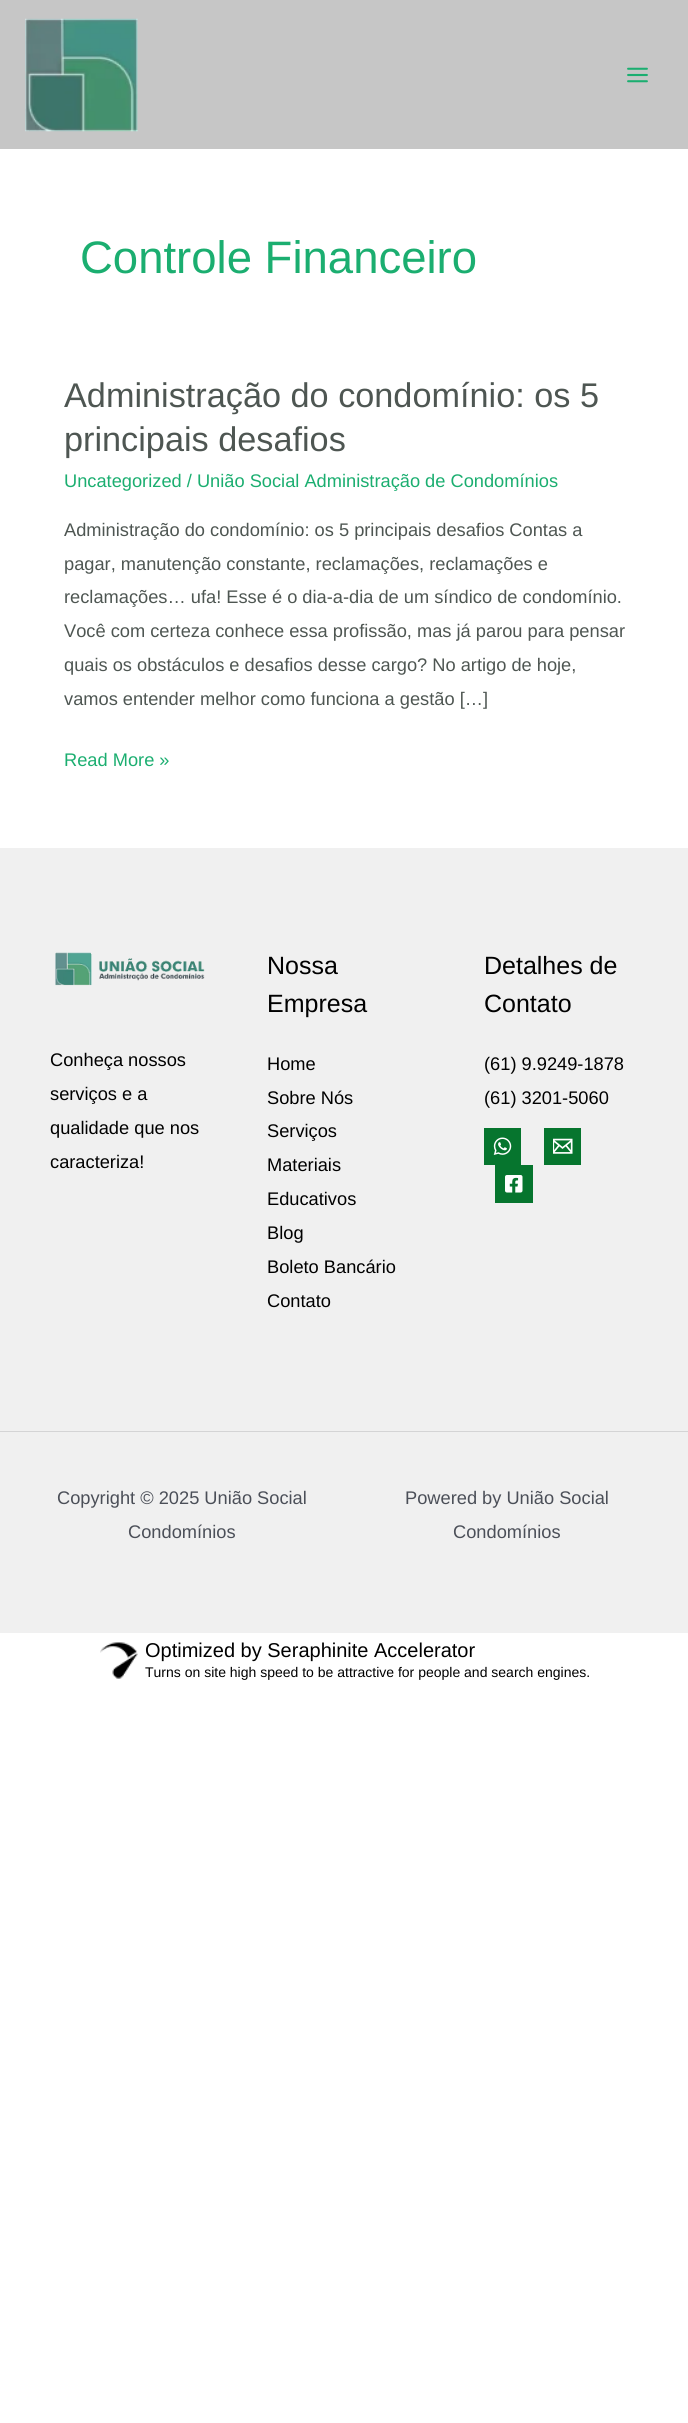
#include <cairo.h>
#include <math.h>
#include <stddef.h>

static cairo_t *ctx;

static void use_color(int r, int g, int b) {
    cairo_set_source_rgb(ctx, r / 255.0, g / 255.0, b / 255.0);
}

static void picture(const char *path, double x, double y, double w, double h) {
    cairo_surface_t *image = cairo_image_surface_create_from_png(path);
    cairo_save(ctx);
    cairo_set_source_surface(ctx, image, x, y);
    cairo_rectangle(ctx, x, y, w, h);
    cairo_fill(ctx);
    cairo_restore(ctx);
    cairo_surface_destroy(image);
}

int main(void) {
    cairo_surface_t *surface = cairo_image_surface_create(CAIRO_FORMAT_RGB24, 688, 2423);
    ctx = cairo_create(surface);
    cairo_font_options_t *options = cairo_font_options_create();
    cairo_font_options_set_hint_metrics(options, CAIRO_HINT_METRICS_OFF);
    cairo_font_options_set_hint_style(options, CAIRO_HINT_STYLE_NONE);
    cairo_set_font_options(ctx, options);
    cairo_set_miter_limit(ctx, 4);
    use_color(255, 255, 255);
    cairo_paint(ctx);
    use_color(198, 198, 198);
    cairo_rectangle(ctx, 0, 0, 688, 149);
    cairo_fill(ctx);
    picture("img1.png", 25, 18, 113, 114);
    picture("img2.png", 627, 67, 21, 16);
    cairo_select_font_face(ctx, "Liberation Sans", CAIRO_FONT_SLANT_NORMAL, CAIRO_FONT_WEIGHT_NORMAL);
    cairo_set_font_size(ctx, 45.5);
    use_color(27, 174, 112);
    cairo_move_to(ctx, 80, 273);
    cairo_show_text(ctx, "Controle Financeiro");
    cairo_set_font_size(ctx, 34.25);
    use_color(78, 86, 82);
    cairo_move_to(ctx, 64, 407);
    cairo_show_text(ctx, "Administração do condomínio: os 5");
    cairo_move_to(ctx, 64, 451);
    cairo_show_text(ctx, "principais desafios");
    cairo_set_font_size(ctx, 18.25);
    use_color(27, 174, 112);
    cairo_move_to(ctx, 64, 487);
    cairo_show_text(ctx, "Uncategorized / União Social Administração de Condomínios");
    use_color(78, 86, 82);
    cairo_move_to(ctx, 64, 536);
    cairo_show_text(ctx, "Administração do condomínio: os 5 principais desafios Contas a");
    cairo_move_to(ctx, 64, 570);
    cairo_show_text(ctx, "pagar, manutenção constante, reclamações, reclamações e");
    cairo_move_to(ctx, 64, 603);
    cairo_show_text(ctx, "reclamações… ufa! Esse é o dia-a-dia de um síndico de condomínio.");
    cairo_move_to(ctx, 64, 637);
    cairo_show_text(ctx, "Você com certeza conhece essa profissão, mas já parou para pensar");
    cairo_move_to(ctx, 64, 671);
    cairo_show_text(ctx, "quais os obstáculos e desafios desse cargo? No artigo de hoje,");
    cairo_move_to(ctx, 64, 705);
    cairo_show_text(ctx, "vamos entender melhor como funciona a gestão […]");
    use_color(27, 174, 112);
    cairo_move_to(ctx, 64, 766);
    cairo_show_text(ctx, "Read More »");
    use_color(240, 240, 240);
    cairo_rectangle(ctx, 0, 848, 688, 583);
    cairo_fill(ctx);
    picture("img3.png", 55, 952, 150, 34);
    use_color(0, 0, 0);
    cairo_move_to(ctx, 50, 1066);
    cairo_show_text(ctx, "Conheça nossos");
    cairo_move_to(ctx, 50, 1100);
    cairo_show_text(ctx, "serviços e a");
    cairo_move_to(ctx, 50, 1134);
    cairo_show_text(ctx, "qualidade que nos");
    cairo_move_to(ctx, 50, 1168);
    cairo_show_text(ctx, "caracteriza!");
    cairo_set_font_size(ctx, 25);
    cairo_move_to(ctx, 267, 974);
    cairo_show_text(ctx, "Nossa");
    cairo_move_to(ctx, 267, 1012);
    cairo_show_text(ctx, "Empresa");
    cairo_set_font_size(ctx, 18.25);
    cairo_move_to(ctx, 267, 1070);
    cairo_show_text(ctx, "Home");
    cairo_move_to(ctx, 267, 1104);
    cairo_show_text(ctx, "Sobre Nós");
    cairo_move_to(ctx, 267, 1137);
    cairo_show_text(ctx, "Serviços");
    cairo_move_to(ctx, 267, 1171);
    cairo_show_text(ctx, "Materiais");
    cairo_move_to(ctx, 267, 1205);
    cairo_show_text(ctx, "Educativos");
    cairo_move_to(ctx, 267, 1239);
    cairo_show_text(ctx, "Blog");
    cairo_move_to(ctx, 267, 1273);
    cairo_show_text(ctx, "Boleto Bancário");
    cairo_move_to(ctx, 267, 1307);
    cairo_show_text(ctx, "Contato");
    cairo_set_font_size(ctx, 25);
    cairo_move_to(ctx, 484, 974);
    cairo_show_text(ctx, "Detalhes de");
    cairo_move_to(ctx, 484, 1012);
    cairo_show_text(ctx, "Contato");
    cairo_set_font_size(ctx, 18.25);
    cairo_move_to(ctx, 484, 1070);
    cairo_show_text(ctx, "(61) 9.9249-1878");
    cairo_move_to(ctx, 484, 1104);
    cairo_show_text(ctx, "(61) 3201-5060");
    use_color(6, 117, 46);
    cairo_rectangle(ctx, 484, 1128, 37, 37);
    cairo_fill(ctx);
    picture("img4.png", 493, 1137, 19, 18);
    cairo_rectangle(ctx, 544, 1128, 37, 37);
    cairo_fill(ctx);
    picture("img5.png", 553, 1138, 20, 16);
    cairo_rectangle(ctx, 495, 1165, 38, 38);
    cairo_fill(ctx);
    picture("img6.png", 505, 1175, 18, 18);
    use_color(240, 240, 240);
    cairo_rectangle(ctx, 0, 1432, 688, 201);
    cairo_fill(ctx);
    use_color(212, 212, 213);
    cairo_rectangle(ctx, 0, 1431, 688, 1);
    cairo_fill(ctx);
    use_color(75, 79, 88);
    cairo_move_to(ctx, 57, 1504);
    cairo_show_text(ctx, "Copyright © 2025 União Social");
    cairo_move_to(ctx, 128, 1538);
    cairo_show_text(ctx, "Condomínios");
    cairo_move_to(ctx, 405, 1504);
    cairo_show_text(ctx, "Powered by União Social");
    cairo_move_to(ctx, 453, 1538);
    cairo_show_text(ctx, "Condomínios");
    picture("img7.png", 100, 1642, 38, 37);
    cairo_set_font_size(ctx, 20);
    use_color(0, 0, 0);
    cairo_move_to(ctx, 145, 1657);
    cairo_show_text(ctx, "Optimized by Seraphinite Accelerator");
    cairo_set_font_size(ctx, 14);
    cairo_move_to(ctx, 145, 1677);
    cairo_show_text(ctx, "Turns on site high speed to be attractive for people and search engines.");
    cairo_surface_write_to_png(surface, "result.png");
    cairo_font_options_destroy(options);
    cairo_destroy(ctx);
    cairo_surface_destroy(surface);
    return 0;
}
